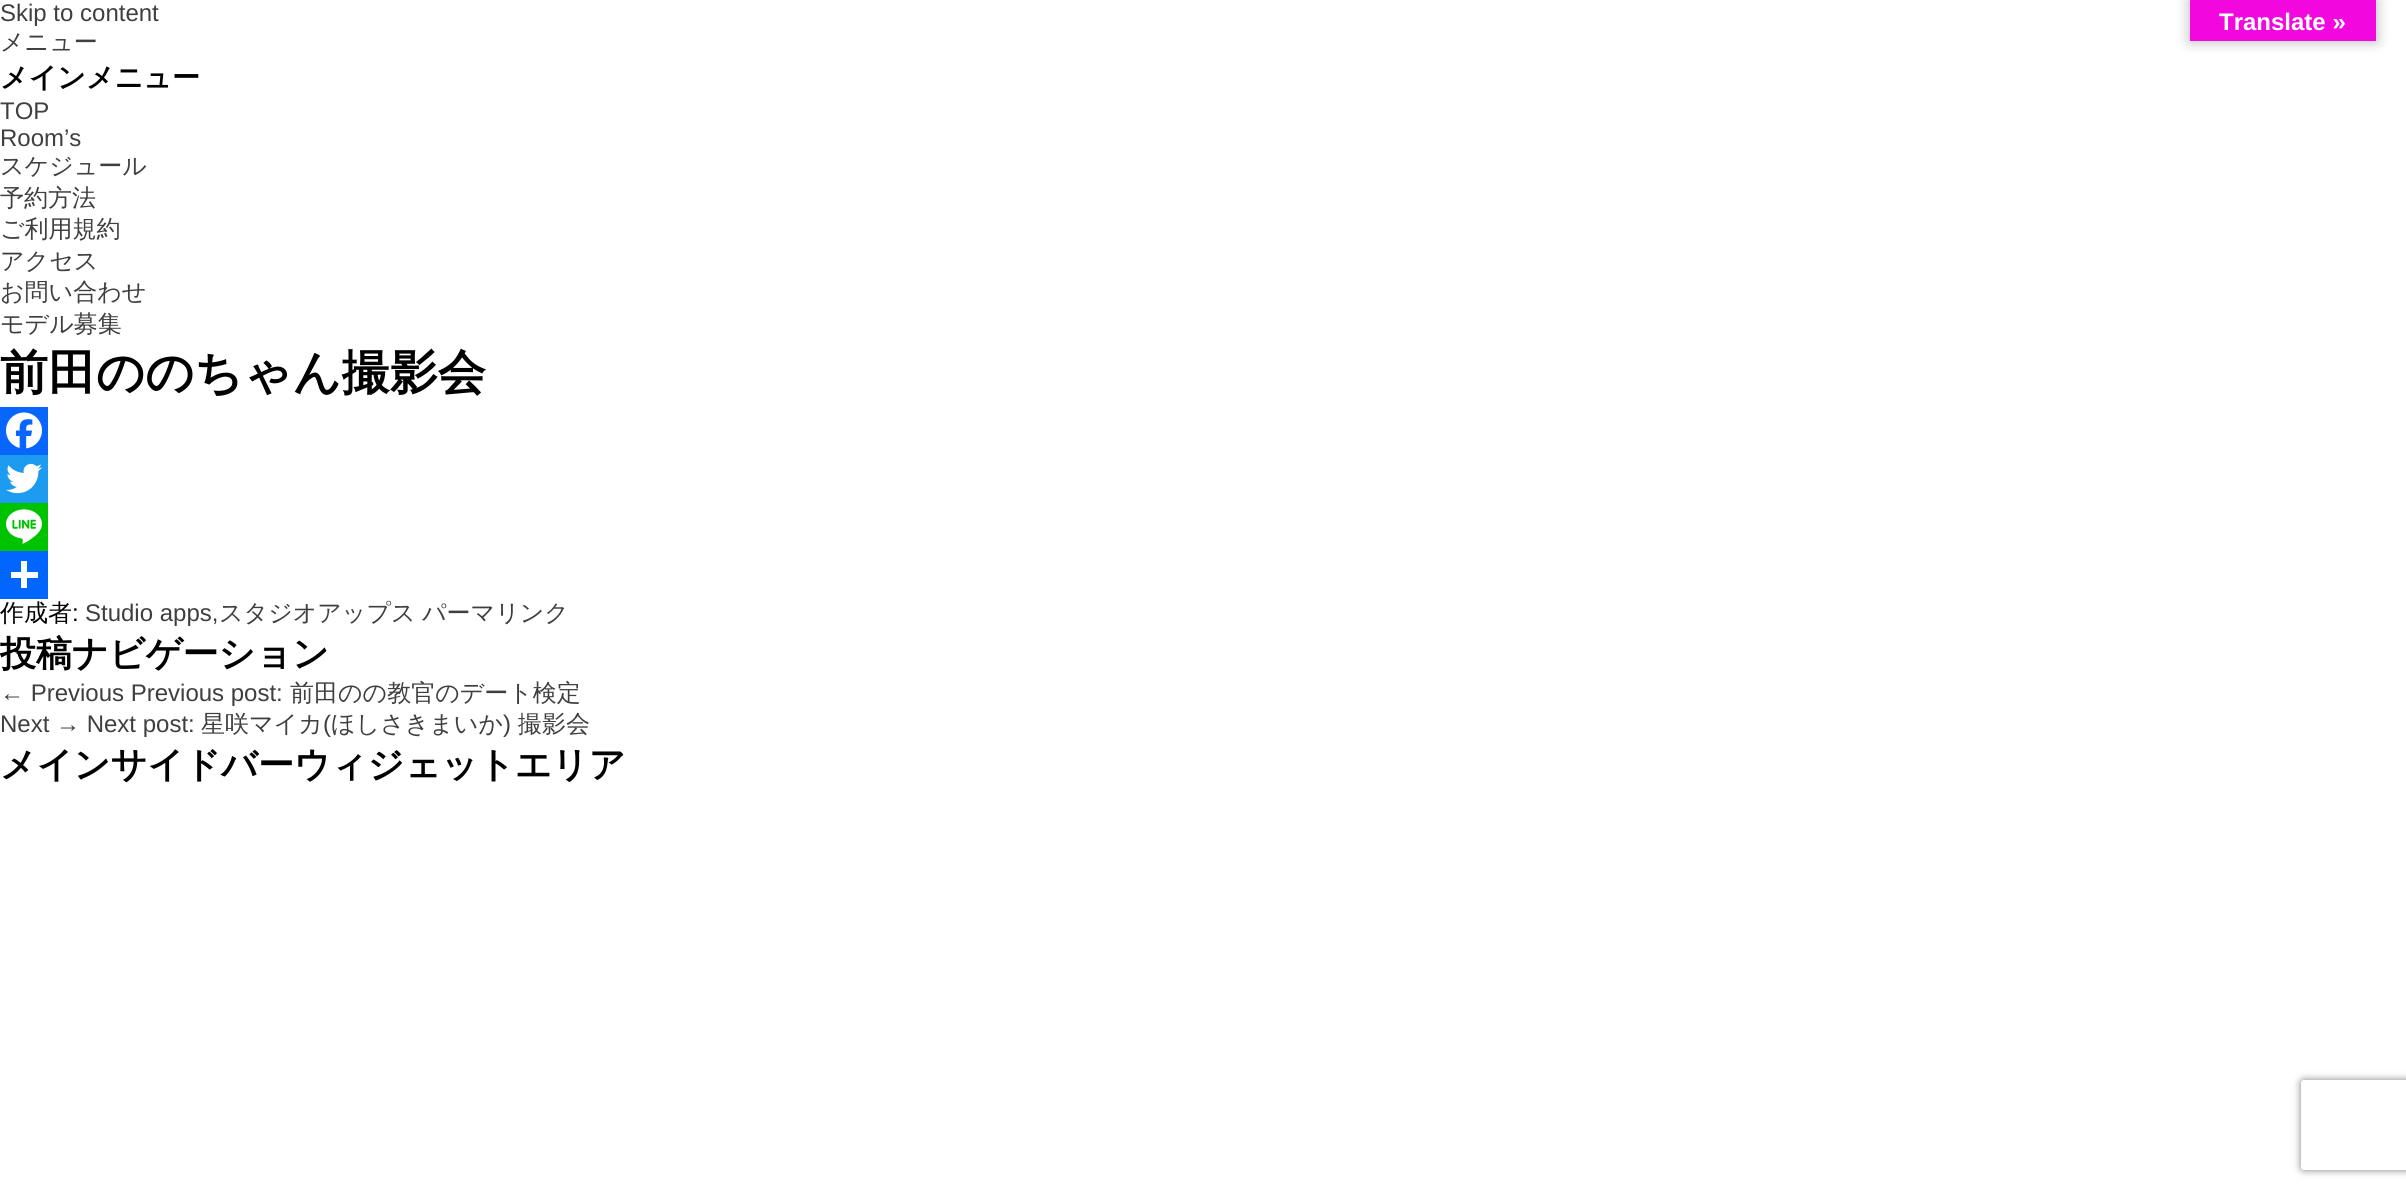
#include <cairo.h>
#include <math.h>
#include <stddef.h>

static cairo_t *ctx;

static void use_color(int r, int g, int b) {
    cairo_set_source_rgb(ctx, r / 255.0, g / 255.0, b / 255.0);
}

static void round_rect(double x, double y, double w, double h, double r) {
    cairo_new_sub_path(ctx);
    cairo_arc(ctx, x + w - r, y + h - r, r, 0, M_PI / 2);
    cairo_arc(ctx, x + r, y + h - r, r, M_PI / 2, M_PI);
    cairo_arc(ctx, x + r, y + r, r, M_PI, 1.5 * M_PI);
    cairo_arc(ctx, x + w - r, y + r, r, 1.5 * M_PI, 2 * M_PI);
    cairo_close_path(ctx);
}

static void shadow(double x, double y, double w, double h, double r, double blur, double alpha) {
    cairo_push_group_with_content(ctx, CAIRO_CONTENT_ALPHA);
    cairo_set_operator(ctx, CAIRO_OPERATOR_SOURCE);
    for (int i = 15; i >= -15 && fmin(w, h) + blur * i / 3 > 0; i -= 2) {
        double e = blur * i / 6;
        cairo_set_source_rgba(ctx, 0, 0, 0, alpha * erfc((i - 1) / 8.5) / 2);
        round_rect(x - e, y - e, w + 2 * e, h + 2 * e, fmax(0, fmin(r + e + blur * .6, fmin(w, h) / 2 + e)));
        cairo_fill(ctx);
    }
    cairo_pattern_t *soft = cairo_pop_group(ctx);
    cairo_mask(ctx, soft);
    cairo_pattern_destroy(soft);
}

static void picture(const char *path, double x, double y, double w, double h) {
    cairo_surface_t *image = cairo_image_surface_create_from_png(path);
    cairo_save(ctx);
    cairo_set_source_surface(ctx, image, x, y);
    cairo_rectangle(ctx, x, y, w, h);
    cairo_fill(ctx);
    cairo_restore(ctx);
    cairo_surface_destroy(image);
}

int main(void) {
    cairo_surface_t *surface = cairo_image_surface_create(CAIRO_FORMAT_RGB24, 2406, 1190);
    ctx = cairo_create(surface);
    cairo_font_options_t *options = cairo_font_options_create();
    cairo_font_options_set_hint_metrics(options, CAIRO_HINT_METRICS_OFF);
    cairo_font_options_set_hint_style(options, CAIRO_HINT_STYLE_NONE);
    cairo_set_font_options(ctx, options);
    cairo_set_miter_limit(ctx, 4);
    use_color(255, 255, 255);
    cairo_paint(ctx);
    cairo_select_font_face(ctx, "Liberation Sans", CAIRO_FONT_SLANT_NORMAL, CAIRO_FONT_WEIGHT_NORMAL);
    cairo_set_font_size(ctx, 24);
    use_color(63, 63, 63);
    cairo_move_to(ctx, 0, 21);
    cairo_show_text(ctx, "Skip to content");
    cairo_select_font_face(ctx, "WenQuanYi Zen Hei Medium", CAIRO_FONT_SLANT_NORMAL, CAIRO_FONT_WEIGHT_NORMAL);
    cairo_move_to(ctx, 0, 50);
    cairo_show_text(ctx, "メニュー");
    cairo_select_font_face(ctx, "WenQuanYi Zen Hei", CAIRO_FONT_SLANT_NORMAL, CAIRO_FONT_WEIGHT_BOLD);
    cairo_set_font_size(ctx, 28);
    use_color(0, 0, 0);
    cairo_move_to(ctx, 0, 87);
    cairo_show_text(ctx, "メインメニュー");
    cairo_select_font_face(ctx, "Liberation Sans", CAIRO_FONT_SLANT_NORMAL, CAIRO_FONT_WEIGHT_NORMAL);
    cairo_set_font_size(ctx, 24);
    use_color(63, 63, 63);
    cairo_move_to(ctx, 0, 119);
    cairo_show_text(ctx, "TOP");
    cairo_move_to(ctx, 0, 146);
    cairo_show_text(ctx, "Room’s");
    cairo_select_font_face(ctx, "WenQuanYi Zen Hei Medium", CAIRO_FONT_SLANT_NORMAL, CAIRO_FONT_WEIGHT_NORMAL);
    cairo_move_to(ctx, 0, 174);
    cairo_show_text(ctx, "スケジュール");
    cairo_move_to(ctx, 0, 206);
    cairo_show_text(ctx, "予約方法");
    cairo_move_to(ctx, 0, 237);
    cairo_show_text(ctx, "ご利用規約");
    cairo_move_to(ctx, 0, 269);
    cairo_show_text(ctx, "アクセス");
    cairo_move_to(ctx, 0, 300);
    cairo_show_text(ctx, "お問い合わせ");
    cairo_move_to(ctx, 0, 332);
    cairo_show_text(ctx, "モデル募集");
    cairo_select_font_face(ctx, "WenQuanYi Zen Hei", CAIRO_FONT_SLANT_NORMAL, CAIRO_FONT_WEIGHT_BOLD);
    cairo_set_font_size(ctx, 48);
    use_color(0, 0, 0);
    cairo_move_to(ctx, 0, 389);
    cairo_show_text(ctx, "前田ののちゃん撮影会");
    use_color(8, 102, 255);
    cairo_rectangle(ctx, 0, 407, 48, 48);
    cairo_fill(ctx);
    picture("img1.png", 6, 412, 36, 37);
    use_color(29, 155, 240);
    cairo_rectangle(ctx, 0, 455, 48, 48);
    cairo_fill(ctx);
    picture("img2.png", 6, 463, 36, 31);
    use_color(0, 195, 0);
    cairo_rectangle(ctx, 0, 503, 48, 48);
    cairo_fill(ctx);
    picture("img3.png", 6, 509, 36, 35);
    use_color(1, 102, 255);
    cairo_rectangle(ctx, 0, 551, 48, 48);
    cairo_fill(ctx);
    use_color(255, 255, 255);
    cairo_rectangle(ctx, 21, 561, 6, 27);
    cairo_fill(ctx);
    cairo_rectangle(ctx, 11, 572, 27, 6);
    cairo_fill(ctx);
    cairo_select_font_face(ctx, "WenQuanYi Zen Hei Medium", CAIRO_FONT_SLANT_NORMAL, CAIRO_FONT_WEIGHT_NORMAL);
    cairo_set_font_size(ctx, 24);
    use_color(0, 0, 0);
    cairo_move_to(ctx, 0, 621);
    cairo_show_text(ctx, "作成者");
    cairo_select_font_face(ctx, "Liberation Sans", CAIRO_FONT_SLANT_NORMAL, CAIRO_FONT_WEIGHT_NORMAL);
    cairo_move_to(ctx, 72, 621);
    cairo_show_text(ctx, ":");
    use_color(63, 63, 63);
    cairo_move_to(ctx, 85, 621);
    cairo_show_text(ctx, "Studio apps,");
    cairo_select_font_face(ctx, "WenQuanYi Zen Hei Medium", CAIRO_FONT_SLANT_NORMAL, CAIRO_FONT_WEIGHT_NORMAL);
    cairo_move_to(ctx, 219, 621);
    cairo_show_text(ctx, "スタジオアップス");
    cairo_move_to(ctx, 422, 621);
    cairo_show_text(ctx, "パーマリンク");
    cairo_select_font_face(ctx, "WenQuanYi Zen Hei", CAIRO_FONT_SLANT_NORMAL, CAIRO_FONT_WEIGHT_BOLD);
    cairo_set_font_size(ctx, 36);
    use_color(0, 0, 0);
    cairo_move_to(ctx, 0, 666);
    cairo_show_text(ctx, "投稿ナビゲーション");
    cairo_select_font_face(ctx, "Liberation Sans", CAIRO_FONT_SLANT_NORMAL, CAIRO_FONT_WEIGHT_NORMAL);
    cairo_set_font_size(ctx, 24);
    use_color(63, 63, 63);
    cairo_move_to(ctx, 0, 701);
    cairo_show_text(ctx, "← Previous Previous post:");
    cairo_select_font_face(ctx, "WenQuanYi Zen Hei Medium", CAIRO_FONT_SLANT_NORMAL, CAIRO_FONT_WEIGHT_NORMAL);
    cairo_move_to(ctx, 290, 701);
    cairo_show_text(ctx, "前田のの教官のデート検定");
    cairo_select_font_face(ctx, "Liberation Sans", CAIRO_FONT_SLANT_NORMAL, CAIRO_FONT_WEIGHT_NORMAL);
    cairo_move_to(ctx, 0, 732);
    cairo_show_text(ctx, "Next → Next post:");
    cairo_select_font_face(ctx, "WenQuanYi Zen Hei Medium", CAIRO_FONT_SLANT_NORMAL, CAIRO_FONT_WEIGHT_NORMAL);
    cairo_move_to(ctx, 201, 732);
    cairo_show_text(ctx, "星咲マイカ");
    cairo_select_font_face(ctx, "Liberation Sans", CAIRO_FONT_SLANT_NORMAL, CAIRO_FONT_WEIGHT_NORMAL);
    cairo_move_to(ctx, 323, 732);
    cairo_show_text(ctx, "(");
    cairo_select_font_face(ctx, "WenQuanYi Zen Hei Medium", CAIRO_FONT_SLANT_NORMAL, CAIRO_FONT_WEIGHT_NORMAL);
    cairo_move_to(ctx, 331, 732);
    cairo_show_text(ctx, "ほしさきまいか");
    cairo_select_font_face(ctx, "Liberation Sans", CAIRO_FONT_SLANT_NORMAL, CAIRO_FONT_WEIGHT_NORMAL);
    cairo_move_to(ctx, 503, 732);
    cairo_show_text(ctx, ")");
    cairo_select_font_face(ctx, "WenQuanYi Zen Hei Medium", CAIRO_FONT_SLANT_NORMAL, CAIRO_FONT_WEIGHT_NORMAL);
    cairo_move_to(ctx, 518, 732);
    cairo_show_text(ctx, "撮影会");
    cairo_select_font_face(ctx, "WenQuanYi Zen Hei", CAIRO_FONT_SLANT_NORMAL, CAIRO_FONT_WEIGHT_BOLD);
    cairo_set_font_size(ctx, 36);
    use_color(0, 0, 0);
    cairo_move_to(ctx, 0, 777);
    cairo_show_text(ctx, "メインサイドバーウィジェットエリア");
    use_color(0, 0, 0);
    shadow(2190, 0, 186, 41, 0, 7, 0.3);
    use_color(242, 7, 222);
    cairo_rectangle(ctx, 2190, 0, 186, 41);
    cairo_fill(ctx);
    cairo_select_font_face(ctx, "Liberation Sans", CAIRO_FONT_SLANT_NORMAL, CAIRO_FONT_WEIGHT_BOLD);
    cairo_set_font_size(ctx, 24);
    use_color(255, 255, 255);
    cairo_move_to(ctx, 2219, 30);
    cairo_show_text(ctx, "Translate »");
    cairo_save(ctx);
    cairo_set_fill_rule(ctx, CAIRO_FILL_RULE_EVEN_ODD);
    cairo_new_path(ctx);
    cairo_move_to(ctx, 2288, 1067);
    cairo_line_to(ctx, 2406, 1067);
    cairo_line_to(ctx, 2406, 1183);
    cairo_line_to(ctx, 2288, 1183);
    cairo_close_path(ctx);
    cairo_move_to(ctx, 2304, 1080);
    cairo_line_to(ctx, 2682, 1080);
    cairo_curve_to(ctx, 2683.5, 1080, 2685, 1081.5, 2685, 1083);
    cairo_line_to(ctx, 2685, 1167);
    cairo_curve_to(ctx, 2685, 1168.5, 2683.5, 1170, 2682, 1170);
    cairo_line_to(ctx, 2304, 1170);
    cairo_curve_to(ctx, 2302.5, 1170, 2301, 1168.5, 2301, 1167);
    cairo_line_to(ctx, 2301, 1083);
    cairo_curve_to(ctx, 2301, 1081.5, 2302.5, 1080, 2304, 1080);
    cairo_close_path(ctx);
    cairo_clip(ctx);
    use_color(128, 128, 128);
    shadow(2301, 1080, 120, 90, 3, 4, 1);
    cairo_restore(ctx);
    cairo_surface_write_to_png(surface, "result.png");
    cairo_font_options_destroy(options);
    cairo_destroy(ctx);
    cairo_surface_destroy(surface);
    return 0;
}
